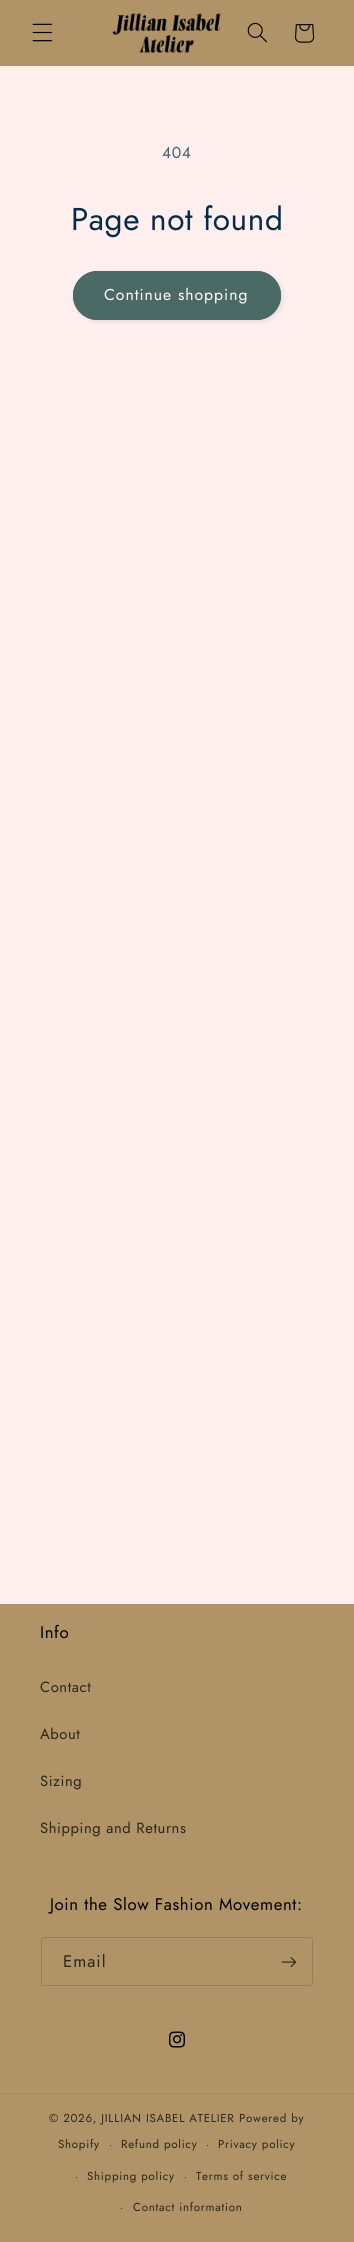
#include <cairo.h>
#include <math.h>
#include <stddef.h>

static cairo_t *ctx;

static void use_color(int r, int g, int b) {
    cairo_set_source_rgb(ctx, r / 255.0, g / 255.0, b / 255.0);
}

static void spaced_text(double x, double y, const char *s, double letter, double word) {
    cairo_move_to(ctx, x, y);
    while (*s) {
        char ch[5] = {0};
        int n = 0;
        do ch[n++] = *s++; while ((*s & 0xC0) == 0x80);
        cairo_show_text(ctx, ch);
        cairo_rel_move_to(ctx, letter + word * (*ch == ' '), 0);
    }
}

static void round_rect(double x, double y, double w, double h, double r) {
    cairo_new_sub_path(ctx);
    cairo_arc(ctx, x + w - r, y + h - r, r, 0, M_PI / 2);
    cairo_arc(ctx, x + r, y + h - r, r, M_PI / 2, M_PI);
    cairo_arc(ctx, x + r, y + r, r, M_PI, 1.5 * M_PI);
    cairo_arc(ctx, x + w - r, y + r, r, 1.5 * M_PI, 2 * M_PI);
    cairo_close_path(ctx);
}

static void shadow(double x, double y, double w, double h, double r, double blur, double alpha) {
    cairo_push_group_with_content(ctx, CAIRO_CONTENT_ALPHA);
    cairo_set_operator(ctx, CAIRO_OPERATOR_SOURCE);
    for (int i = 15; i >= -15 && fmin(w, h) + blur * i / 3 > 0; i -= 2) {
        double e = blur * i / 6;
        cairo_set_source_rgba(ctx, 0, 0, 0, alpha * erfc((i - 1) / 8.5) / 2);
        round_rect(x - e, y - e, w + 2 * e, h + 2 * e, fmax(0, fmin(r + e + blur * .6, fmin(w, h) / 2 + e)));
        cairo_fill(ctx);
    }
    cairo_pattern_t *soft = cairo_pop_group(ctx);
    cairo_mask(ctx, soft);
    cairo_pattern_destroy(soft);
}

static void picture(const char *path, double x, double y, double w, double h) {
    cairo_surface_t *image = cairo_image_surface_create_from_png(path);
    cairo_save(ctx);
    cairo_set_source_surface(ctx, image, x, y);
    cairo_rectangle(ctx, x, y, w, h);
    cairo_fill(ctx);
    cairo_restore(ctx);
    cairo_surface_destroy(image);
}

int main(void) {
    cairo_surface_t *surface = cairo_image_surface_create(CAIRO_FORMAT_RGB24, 354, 2242);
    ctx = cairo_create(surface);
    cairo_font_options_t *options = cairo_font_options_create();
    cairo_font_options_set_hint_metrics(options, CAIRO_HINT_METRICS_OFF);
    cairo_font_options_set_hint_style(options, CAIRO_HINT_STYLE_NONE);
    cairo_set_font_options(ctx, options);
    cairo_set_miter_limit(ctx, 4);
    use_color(255, 239, 239);
    cairo_paint(ctx);
    use_color(176, 147, 103);
    cairo_rectangle(ctx, 0, 0, 354, 66);
    cairo_fill(ctx);
    picture("img1.png", 32, 23, 20, 19);
    picture("img2.png", 112, 13, 109, 40);
    picture("img3.png", 247, 22, 20, 21);
    picture("img4.png", 295, 24, 20, 19);
    cairo_select_font_face(ctx, "Jost", CAIRO_FONT_SLANT_NORMAL, CAIRO_FONT_WEIGHT_NORMAL);
    cairo_set_font_size(ctx, 15.75);
    use_color(68, 93, 112);
    spaced_text(162, 158, "404", 0.6, 0);
    cairo_set_font_size(ctx, 31.5);
    use_color(5, 44, 70);
    spaced_text(71, 230, "Page not found", 0.6, 0);
    use_color(5, 44, 70);
    shadow(75, 273, 208, 49, 24.5, 2.5, 0.1);
    use_color(75, 105, 101);
    round_rect(73, 271, 208, 49, 24.5);
    cairo_fill(ctx);
    round_rect(73.5, 271.5, 207, 48, 24);
    cairo_set_line_width(ctx, 1);
    cairo_stroke(ctx);
    cairo_set_font_size(ctx, 15.75);
    use_color(255, 255, 255);
    spaced_text(104, 300, "Continue shopping", 1, 0);
    use_color(176, 147, 103);
    cairo_rectangle(ctx, 0, 1604, 354, 638);
    cairo_fill(ctx);
    cairo_set_font_size(ctx, 16.75);
    use_color(0, 0, 0);
    spaced_text(40, 1638, "Info", 0.6, 0);
    cairo_set_font_size(ctx, 14.75);
    use_color(44, 37, 26);
    spaced_text(40, 1692, "Contact", 0.6, 0);
    spaced_text(40, 1739, "About", 0.6, 0);
    spaced_text(40, 1786, "Sizing", 0.6, 0);
    spaced_text(40, 1833, "Shipping and Returns", 0.6, 0);
    cairo_set_font_size(ctx, 16.75);
    use_color(0, 0, 0);
    spaced_text(50, 1910, "Join the Slow Fashion Movement:", 0.6, 0);
    round_rect(41.5, 1937.5, 271, 48, 2.5);
    cairo_set_source_rgba(ctx, 0, 0, 0, 0.15);
    cairo_stroke(ctx);
    use_color(44, 37, 26);
    spaced_text(63, 1967, "Email", 1, 0);
    picture("img5.png", 281, 1957, 16, 11);
    picture("img6.png", 169, 2031, 16, 17);
    use_color(162, 135, 95);
    cairo_rectangle(ctx, 0, 2093, 354, 1);
    cairo_fill(ctx);
    cairo_set_font_size(ctx, 11.5);
    use_color(44, 37, 26);
    spaced_text(49, 2122, "© 2026, JILLIAN ISABEL ATELIER", 0.75, 0);
    spaced_text(239, 2122, "Powered by", 0.75, 0);
    spaced_text(58, 2148, "Shopify", 0.75, 0);
    cairo_set_font_size(ctx, 10);
    spaced_text(109, 2148, "·", 0.75, 0);
    cairo_set_font_size(ctx, 11.5);
    spaced_text(121, 2148, "Refund policy", 0.75, 0);
    cairo_set_font_size(ctx, 10);
    spaced_text(206, 2148, "·", 0.75, 0);
    cairo_set_font_size(ctx, 11.5);
    spaced_text(218, 2148, "Privacy policy", 0.75, 0);
    cairo_set_font_size(ctx, 10);
    spaced_text(75, 2180, "·", 0.75, 0);
    cairo_set_font_size(ctx, 11.5);
    spaced_text(87, 2180, "Shipping policy", 0.75, 0);
    cairo_set_font_size(ctx, 10);
    spaced_text(184, 2180, "·", 0.75, 0);
    cairo_set_font_size(ctx, 11.5);
    spaced_text(196, 2180, "Terms of service", 0.75, 0);
    cairo_set_font_size(ctx, 10);
    spaced_text(120, 2211, "·", 0.75, 0);
    cairo_set_font_size(ctx, 11.5);
    spaced_text(133, 2211, "Contact information", 0.75, 0);
    cairo_surface_write_to_png(surface, "result.png");
    cairo_font_options_destroy(options);
    cairo_destroy(ctx);
    cairo_surface_destroy(surface);
    return 0;
}
